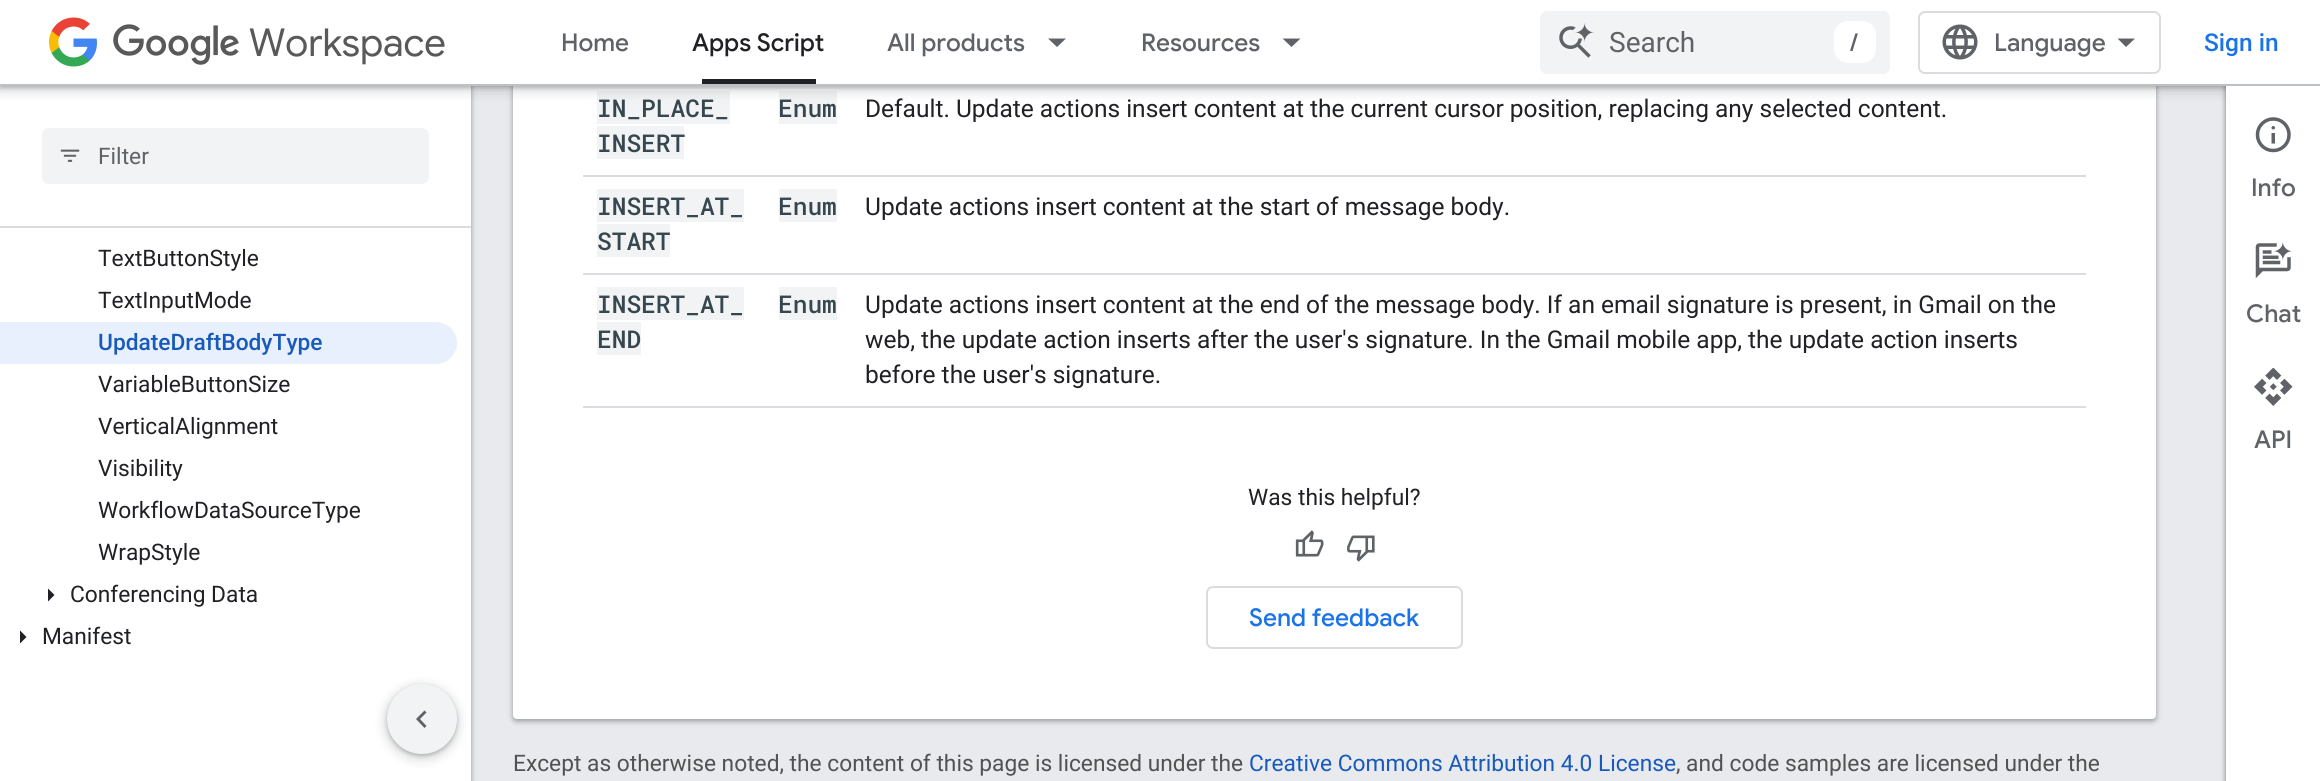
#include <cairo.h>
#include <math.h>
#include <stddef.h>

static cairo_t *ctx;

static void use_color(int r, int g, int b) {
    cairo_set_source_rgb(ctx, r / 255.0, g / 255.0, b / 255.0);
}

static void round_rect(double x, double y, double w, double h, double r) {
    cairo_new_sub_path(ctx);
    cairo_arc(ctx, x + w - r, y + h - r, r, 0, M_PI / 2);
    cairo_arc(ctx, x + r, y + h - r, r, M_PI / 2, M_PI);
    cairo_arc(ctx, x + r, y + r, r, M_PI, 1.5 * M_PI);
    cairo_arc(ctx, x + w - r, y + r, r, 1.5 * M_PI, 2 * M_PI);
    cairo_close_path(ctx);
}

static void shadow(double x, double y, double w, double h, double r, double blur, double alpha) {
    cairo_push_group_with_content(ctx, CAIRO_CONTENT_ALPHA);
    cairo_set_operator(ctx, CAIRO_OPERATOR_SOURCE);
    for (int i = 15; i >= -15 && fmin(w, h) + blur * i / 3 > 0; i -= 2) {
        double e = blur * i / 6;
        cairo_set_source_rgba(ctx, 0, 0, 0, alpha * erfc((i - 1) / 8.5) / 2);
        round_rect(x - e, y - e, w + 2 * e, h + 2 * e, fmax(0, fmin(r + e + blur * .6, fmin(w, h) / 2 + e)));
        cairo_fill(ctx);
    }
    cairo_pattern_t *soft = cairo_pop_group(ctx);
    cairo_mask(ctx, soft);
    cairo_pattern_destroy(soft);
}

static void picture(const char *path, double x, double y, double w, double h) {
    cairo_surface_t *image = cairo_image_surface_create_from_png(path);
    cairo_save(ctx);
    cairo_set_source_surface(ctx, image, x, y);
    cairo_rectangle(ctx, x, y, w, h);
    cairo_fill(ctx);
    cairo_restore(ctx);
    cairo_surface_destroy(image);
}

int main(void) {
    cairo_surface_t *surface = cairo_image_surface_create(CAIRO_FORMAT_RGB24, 2320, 781);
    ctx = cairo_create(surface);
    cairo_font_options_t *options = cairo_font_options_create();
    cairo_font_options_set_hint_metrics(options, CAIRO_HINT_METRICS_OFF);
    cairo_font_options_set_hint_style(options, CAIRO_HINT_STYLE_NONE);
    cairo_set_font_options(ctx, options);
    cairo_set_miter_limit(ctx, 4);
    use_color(232, 234, 237);
    cairo_paint(ctx);
    use_color(60, 64, 67);
    shadow(-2, 0, 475, 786, 0, 2.5, 0.15);
    shadow(0, 2, 471, 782, 0, 2, 0.3);
    use_color(255, 255, 255);
    cairo_rectangle(ctx, 0, 228, 471, 553);
    cairo_fill(ctx);
    cairo_rectangle(ctx, 0, 86, 471, 140);
    cairo_fill(ctx);
    use_color(60, 64, 67);
    shadow(511, -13, 1647, 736, 5, 2.5, 0.15);
    shadow(513, -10, 1643, 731, 4, 2, 0.3);
    use_color(255, 255, 255);
    round_rect(513, -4, 1643, 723, 4);
    cairo_fill(ctx);
    use_color(241, 243, 244);
    cairo_rectangle(ctx, 597, 91, 133, 33);
    cairo_fill(ctx);
    cairo_rectangle(ctx, 779, 91, 58, 33);
    cairo_fill(ctx);
    use_color(60, 64, 67);
    shadow(-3, -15, 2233, 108, 0, 5, 0.15);
    shadow(0, -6, 2226, 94, 0, 2, 0.3);
    use_color(0, 0, 0);
    shadow(2224, 84, 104, 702, 0, 2.5, 0.15);
    shadow(2226, 86, 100, 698, 0, 2, 0.3);
    use_color(255, 255, 255);
    cairo_rectangle(ctx, 0, 0, 2320, 84);
    cairo_fill(ctx);
    use_color(189, 193, 198);
    cairo_rectangle(ctx, 0, 84, 2320, 2);
    cairo_fill(ctx);
    picture("img1.png", 49, 17, 48, 50);
    picture("img2.png", 113, 24, 126, 41);
    cairo_select_font_face(ctx, "Google Sans", CAIRO_FONT_SLANT_NORMAL, CAIRO_FONT_WEIGHT_NORMAL);
    cairo_set_font_size(ctx, 38.5);
    use_color(89, 89, 89);
    cairo_move_to(ctx, 249, 56);
    cairo_show_text(ctx, "Workspace");
    cairo_select_font_face(ctx, "Google Sans Medium", CAIRO_FONT_SLANT_NORMAL, CAIRO_FONT_WEIGHT_NORMAL);
    cairo_set_font_size(ctx, 24.5);
    use_color(95, 99, 104);
    cairo_move_to(ctx, 561, 51);
    cairo_show_text(ctx, "Home");
    use_color(32, 33, 36);
    cairo_move_to(ctx, 692, 51);
    cairo_show_text(ctx, "Apps Script");
    cairo_rectangle(ctx, 702, 79, 114, 5);
    cairo_fill(ctx);
    use_color(95, 99, 104);
    cairo_move_to(ctx, 887, 51);
    cairo_show_text(ctx, "All products");
    cairo_new_path(ctx);
    cairo_move_to(ctx, 1048, 38.5);
    cairo_line_to(ctx, 1066, 38.5);
    cairo_line_to(ctx, 1057, 47);
    cairo_close_path(ctx);
    cairo_fill(ctx);
    cairo_move_to(ctx, 1141, 51);
    cairo_show_text(ctx, "Resources");
    cairo_new_path(ctx);
    cairo_move_to(ctx, 1282.5, 38.5);
    cairo_line_to(ctx, 1300.5, 38.5);
    cairo_line_to(ctx, 1291.5, 47);
    cairo_close_path(ctx);
    cairo_fill(ctx);
    use_color(241, 243, 244);
    round_rect(1540, 11, 350, 63, 7);
    cairo_fill(ctx);
    picture("img3.png", 1559, 23, 35, 35);
    cairo_select_font_face(ctx, "Roboto", CAIRO_FONT_SLANT_NORMAL, CAIRO_FONT_WEIGHT_NORMAL);
    cairo_set_font_size(ctx, 28);
    use_color(95, 99, 104);
    cairo_move_to(ctx, 1609, 52);
    cairo_show_text(ctx, "Search");
    use_color(255, 255, 255);
    round_rect(1834, 21, 42, 42, 14);
    cairo_fill(ctx);
    cairo_select_font_face(ctx, "Google Sans Medium", CAIRO_FONT_SLANT_NORMAL, CAIRO_FONT_WEIGHT_NORMAL);
    cairo_set_font_size(ctx, 24.5);
    use_color(95, 99, 104);
    cairo_move_to(ctx, 1850, 51);
    cairo_show_text(ctx, "/");
    round_rect(1919, 12, 241, 61, 6);
    use_color(218, 220, 224);
    cairo_stroke(ctx);
    picture("img4.png", 1942, 24, 36, 36);
    use_color(95, 99, 104);
    cairo_move_to(ctx, 1994, 51);
    cairo_show_text(ctx, "Language");
    cairo_new_path(ctx);
    cairo_move_to(ctx, 2126, 47);
    cairo_line_to(ctx, 2117.5, 38.5);
    cairo_line_to(ctx, 2135, 38.5);
    cairo_close_path(ctx);
    cairo_fill(ctx);
    cairo_select_font_face(ctx, "Roboto Medium", CAIRO_FONT_SLANT_NORMAL, CAIRO_FONT_WEIGHT_NORMAL);
    use_color(26, 115, 232);
    cairo_move_to(ctx, 2204, 51);
    cairo_show_text(ctx, "Sign in");
    use_color(218, 220, 224);
    cairo_rectangle(ctx, 0, 226, 471, 2);
    cairo_fill(ctx);
    use_color(241, 243, 244);
    round_rect(42, 128, 387, 56, 7);
    cairo_fill(ctx);
    picture("img5.png", 60, 149, 20, 13);
    cairo_select_font_face(ctx, "Roboto", CAIRO_FONT_SLANT_NORMAL, CAIRO_FONT_WEIGHT_NORMAL);
    cairo_set_font_size(ctx, 22.75);
    use_color(95, 99, 104);
    cairo_move_to(ctx, 98, 164);
    cairo_show_text(ctx, "Filter");
    use_color(32, 33, 36);
    cairo_move_to(ctx, 98, 266);
    cairo_show_text(ctx, "TextButtonStyle");
    cairo_move_to(ctx, 98, 308);
    cairo_show_text(ctx, "TextInputMode");
    use_color(232, 240, 254);
    cairo_new_path(ctx);
    cairo_move_to(ctx, 0, 322);
    cairo_line_to(ctx, 436, 322);
    cairo_curve_to(ctx, 447.5, 322, 457, 331.5, 457, 343);
    cairo_curve_to(ctx, 457, 354.5, 447.5, 364, 436, 364);
    cairo_line_to(ctx, 0, 364);
    cairo_close_path(ctx);
    cairo_fill(ctx);
    cairo_select_font_face(ctx, "Roboto Medium", CAIRO_FONT_SLANT_NORMAL, CAIRO_FONT_WEIGHT_NORMAL);
    use_color(24, 90, 188);
    cairo_move_to(ctx, 98, 350);
    cairo_show_text(ctx, "UpdateDraftBodyType");
    cairo_select_font_face(ctx, "Roboto", CAIRO_FONT_SLANT_NORMAL, CAIRO_FONT_WEIGHT_NORMAL);
    use_color(32, 33, 36);
    cairo_move_to(ctx, 98, 392);
    cairo_show_text(ctx, "VariableButtonSize");
    cairo_move_to(ctx, 98, 434);
    cairo_show_text(ctx, "VerticalAlignment");
    cairo_move_to(ctx, 98, 476);
    cairo_show_text(ctx, "Visibility");
    cairo_move_to(ctx, 98, 518);
    cairo_show_text(ctx, "WorkflowDataSourceType");
    cairo_move_to(ctx, 98, 560);
    cairo_show_text(ctx, "WrapStyle");
    cairo_new_path(ctx);
    cairo_move_to(ctx, 48, 601.5);
    cairo_line_to(ctx, 48, 588.5);
    cairo_line_to(ctx, 54.5, 595);
    cairo_close_path(ctx);
    cairo_fill(ctx);
    cairo_move_to(ctx, 70, 602);
    cairo_show_text(ctx, "Conferencing Data");
    cairo_new_path(ctx);
    cairo_move_to(ctx, 20, 643.5);
    cairo_line_to(ctx, 20, 630.5);
    cairo_line_to(ctx, 26.5, 637);
    cairo_close_path(ctx);
    cairo_fill(ctx);
    cairo_move_to(ctx, 42, 644);
    cairo_show_text(ctx, "Manifest");
    use_color(218, 220, 224);
    cairo_rectangle(ctx, 583, 175, 1503, 2);
    cairo_fill(ctx);
    cairo_select_font_face(ctx, "Roboto Mono Medium", CAIRO_FONT_SLANT_NORMAL, CAIRO_FONT_WEIGHT_NORMAL);
    cairo_set_font_size(ctx, 24.5);
    use_color(55, 71, 79);
    cairo_move_to(ctx, 597, 117);
    cairo_show_text(ctx, "IN_PLACE_");
    use_color(241, 243, 244);
    cairo_rectangle(ctx, 597, 126, 87, 33);
    cairo_fill(ctx);
    use_color(55, 71, 79);
    cairo_move_to(ctx, 597, 152);
    cairo_show_text(ctx, "INSERT");
    cairo_move_to(ctx, 778, 117);
    cairo_show_text(ctx, "Enum");
    cairo_select_font_face(ctx, "Roboto", CAIRO_FONT_SLANT_NORMAL, CAIRO_FONT_WEIGHT_NORMAL);
    use_color(32, 33, 36);
    cairo_move_to(ctx, 865, 117);
    cairo_show_text(ctx, "Default. Update actions insert content at the current cursor position, replacing any selected content.");
    use_color(218, 220, 224);
    cairo_rectangle(ctx, 583, 273, 1503, 2);
    cairo_fill(ctx);
    use_color(241, 243, 244);
    cairo_rectangle(ctx, 597, 189, 147, 33);
    cairo_fill(ctx);
    cairo_select_font_face(ctx, "Roboto Mono Medium", CAIRO_FONT_SLANT_NORMAL, CAIRO_FONT_WEIGHT_NORMAL);
    use_color(55, 71, 79);
    cairo_move_to(ctx, 597, 215);
    cairo_show_text(ctx, "INSERT_AT_");
    use_color(241, 243, 244);
    cairo_rectangle(ctx, 597, 224, 73, 33);
    cairo_fill(ctx);
    use_color(55, 71, 79);
    cairo_move_to(ctx, 597, 250);
    cairo_show_text(ctx, "START");
    use_color(241, 243, 244);
    cairo_rectangle(ctx, 779, 189, 58, 33);
    cairo_fill(ctx);
    use_color(55, 71, 79);
    cairo_move_to(ctx, 778, 215);
    cairo_show_text(ctx, "Enum");
    cairo_select_font_face(ctx, "Roboto", CAIRO_FONT_SLANT_NORMAL, CAIRO_FONT_WEIGHT_NORMAL);
    use_color(32, 33, 36);
    cairo_move_to(ctx, 865, 215);
    cairo_show_text(ctx, "Update actions insert content at the start of message body.");
    use_color(218, 220, 224);
    cairo_rectangle(ctx, 583, 406, 1503, 2);
    cairo_fill(ctx);
    use_color(241, 243, 244);
    cairo_rectangle(ctx, 597, 287, 147, 33);
    cairo_fill(ctx);
    cairo_select_font_face(ctx, "Roboto Mono Medium", CAIRO_FONT_SLANT_NORMAL, CAIRO_FONT_WEIGHT_NORMAL);
    use_color(55, 71, 79);
    cairo_move_to(ctx, 597, 313);
    cairo_show_text(ctx, "INSERT_AT_");
    use_color(241, 243, 244);
    cairo_rectangle(ctx, 597, 322, 44, 33);
    cairo_fill(ctx);
    use_color(55, 71, 79);
    cairo_move_to(ctx, 597, 348);
    cairo_show_text(ctx, "END");
    use_color(241, 243, 244);
    cairo_rectangle(ctx, 779, 287, 58, 33);
    cairo_fill(ctx);
    use_color(55, 71, 79);
    cairo_move_to(ctx, 778, 313);
    cairo_show_text(ctx, "Enum");
    cairo_select_font_face(ctx, "Roboto", CAIRO_FONT_SLANT_NORMAL, CAIRO_FONT_WEIGHT_NORMAL);
    use_color(32, 33, 36);
    cairo_move_to(ctx, 865, 313);
    cairo_show_text(ctx, "Update actions insert content at the end of the message body. If an email signature is present, in Gmail on the");
    cairo_move_to(ctx, 865, 348);
    cairo_show_text(ctx, "web, the update action inserts after the user's signature. In the Gmail mobile app, the update action inserts");
    cairo_move_to(ctx, 865, 383);
    cairo_show_text(ctx, "before the user's signature.");
    cairo_set_font_size(ctx, 22.75);
    cairo_move_to(ctx, 1248, 505);
    cairo_show_text(ctx, "Was this helpful?");
    picture("img6.png", 1295, 530, 29, 27);
    picture("img7.png", 1347, 535, 28, 27);
    round_rect(1207, 587, 255, 61, 6);
    use_color(218, 220, 224);
    cairo_stroke(ctx);
    cairo_select_font_face(ctx, "Google Sans Medium", CAIRO_FONT_SLANT_NORMAL, CAIRO_FONT_WEIGHT_NORMAL);
    cairo_set_font_size(ctx, 24.5);
    use_color(26, 115, 232);
    cairo_move_to(ctx, 1249, 626);
    cairo_show_text(ctx, "Send feedback");
    cairo_select_font_face(ctx, "Roboto", CAIRO_FONT_SLANT_NORMAL, CAIRO_FONT_WEIGHT_NORMAL);
    cairo_set_font_size(ctx, 22.75);
    use_color(81, 82, 83);
    cairo_move_to(ctx, 513, 771);
    cairo_show_text(ctx, "Except as otherwise noted, the content of this page is licensed under the");
    use_color(24, 90, 188);
    cairo_move_to(ctx, 1249, 771);
    cairo_show_text(ctx, "Creative Commons Attribution 4.0 License");
    use_color(81, 82, 83);
    cairo_move_to(ctx, 1676, 771);
    cairo_show_text(ctx, ", and code samples are licensed under the");
    use_color(255, 255, 255);
    cairo_rectangle(ctx, 2226, 86, 94, 695);
    cairo_fill(ctx);
    picture("img8.png", 2255, 117, 36, 36);
    cairo_select_font_face(ctx, "Google Sans Medium", CAIRO_FONT_SLANT_NORMAL, CAIRO_FONT_WEIGHT_NORMAL);
    cairo_set_font_size(ctx, 24.5);
    use_color(95, 99, 104);
    cairo_move_to(ctx, 2251, 196);
    cairo_show_text(ctx, "Info");
    picture("img9.png", 2255, 242, 37, 37);
    cairo_move_to(ctx, 2246, 322);
    cairo_show_text(ctx, "Chat");
    picture("img10.png", 2254, 368, 39, 38);
    cairo_move_to(ctx, 2254, 448);
    cairo_show_text(ctx, "API");
    use_color(60, 64, 67);
    shadow(383, 684, 77, 77, 38.5, 5, 0.15);
    shadow(387, 686, 70, 70, 35, 2, 0.3);
    use_color(241, 243, 244);
    cairo_arc(ctx, 422, 719, 35, 0, 2 * M_PI);
    cairo_fill(ctx);
    use_color(95, 99, 104);
    cairo_new_path(ctx);
    cairo_move_to(ctx, 426.5, 712.5);
    cairo_line_to(ctx, 420, 719);
    cairo_line_to(ctx, 426.5, 726);
    cairo_line_to(ctx, 424.5, 728);
    cairo_line_to(ctx, 416, 719);
    cairo_line_to(ctx, 424.5, 710.5);
    cairo_close_path(ctx);
    cairo_fill(ctx);
    cairo_surface_write_to_png(surface, "result.png");
    cairo_font_options_destroy(options);
    cairo_destroy(ctx);
    cairo_surface_destroy(surface);
    return 0;
}
